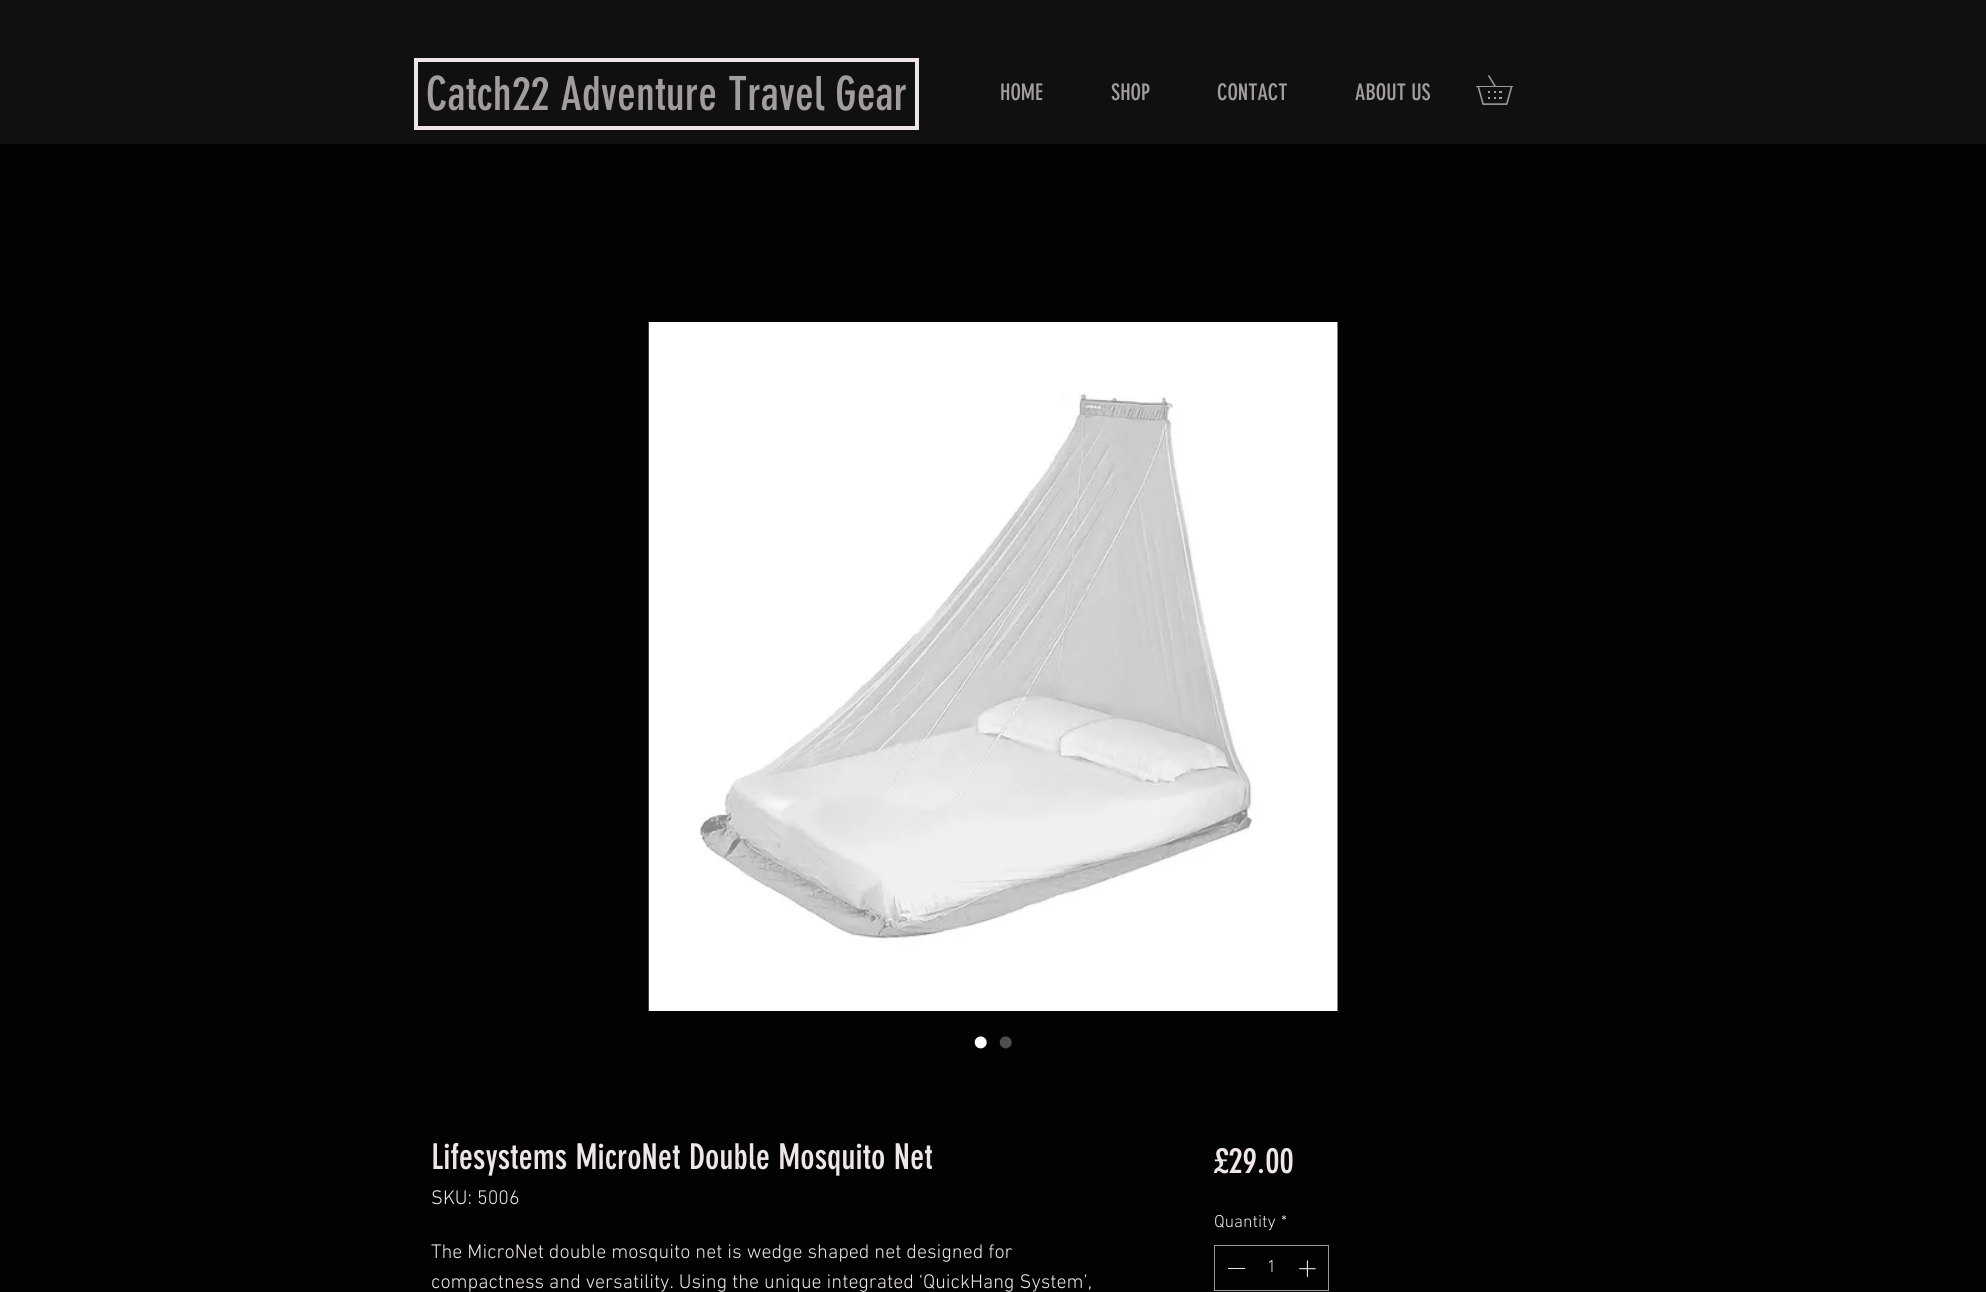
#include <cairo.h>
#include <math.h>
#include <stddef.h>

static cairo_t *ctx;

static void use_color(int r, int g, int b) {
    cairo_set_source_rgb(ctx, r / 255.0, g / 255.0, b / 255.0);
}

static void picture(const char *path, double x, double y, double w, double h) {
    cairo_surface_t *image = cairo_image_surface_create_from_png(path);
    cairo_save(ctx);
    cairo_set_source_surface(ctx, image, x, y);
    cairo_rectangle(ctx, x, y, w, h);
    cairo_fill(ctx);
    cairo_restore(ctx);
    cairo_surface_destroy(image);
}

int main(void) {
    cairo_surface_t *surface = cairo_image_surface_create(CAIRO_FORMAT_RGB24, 1986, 1292);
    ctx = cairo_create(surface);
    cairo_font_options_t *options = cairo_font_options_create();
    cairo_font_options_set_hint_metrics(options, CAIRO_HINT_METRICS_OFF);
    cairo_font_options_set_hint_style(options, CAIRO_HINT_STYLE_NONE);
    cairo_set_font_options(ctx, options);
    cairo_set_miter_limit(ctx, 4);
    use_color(2, 2, 2);
    cairo_paint(ctx);
    use_color(16, 16, 16);
    cairo_rectangle(ctx, 0, 0, 1986, 144);
    cairo_fill(ctx);
    cairo_rectangle(ctx, 416, 60, 501, 68);
    use_color(238, 230, 230);
    cairo_set_line_width(ctx, 4);
    cairo_stroke(ctx);
    cairo_select_font_face(ctx, "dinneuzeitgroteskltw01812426", CAIRO_FONT_SLANT_NORMAL, CAIRO_FONT_WEIGHT_NORMAL);
    cairo_set_font_size(ctx, 46.25);
    use_color(162, 156, 156);
    cairo_move_to(ctx, 426, 110);
    cairo_show_text(ctx, "Catch22 Adventure Travel Gear");
    cairo_set_font_size(ctx, 22.5);
    cairo_move_to(ctx, 1000, 100);
    cairo_show_text(ctx, "HOME");
    cairo_move_to(ctx, 1111, 100);
    cairo_show_text(ctx, "SHOP");
    cairo_move_to(ctx, 1217, 100);
    cairo_show_text(ctx, "CONTACT");
    cairo_move_to(ctx, 1355, 100);
    cairo_show_text(ctx, "ABOUT US");
    picture("img1.png", 1476, 75, 37, 30);
    picture("img2.png", 648, 322, 690, 689);
    cairo_select_font_face(ctx, "Liberation Sans", CAIRO_FONT_SLANT_NORMAL, CAIRO_FONT_WEIGHT_NORMAL);
    cairo_set_font_size(ctx, 44);
    use_color(255, 255, 255);
    cairo_move_to(ctx, 973, 1057);
    cairo_show_text(ctx, "•");
    use_color(78, 78, 78);
    cairo_move_to(ctx, 998, 1057);
    cairo_show_text(ctx, "•");
    cairo_select_font_face(ctx, "dinneuzeitgroteskltw01812426", CAIRO_FONT_SLANT_NORMAL, CAIRO_FONT_WEIGHT_NORMAL);
    cairo_set_font_size(ctx, 35);
    use_color(238, 230, 230);
    cairo_move_to(ctx, 431, 1169);
    cairo_show_text(ctx, "Lifesystems MicroNet Double Mosquito Net");
    cairo_select_font_face(ctx, "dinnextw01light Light", CAIRO_FONT_SLANT_NORMAL, CAIRO_FONT_WEIGHT_NORMAL);
    cairo_set_font_size(ctx, 20);
    cairo_move_to(ctx, 431, 1204);
    cairo_show_text(ctx, "SKU: 5006");
    cairo_move_to(ctx, 431, 1258);
    cairo_show_text(ctx, "The MicroNet double mosquito net is wedge shaped net designed for");
    cairo_move_to(ctx, 431, 1288);
    cairo_show_text(ctx, "compactness and versatility. Using the unique integrated ‘QuickHang System’,");
    cairo_select_font_face(ctx, "dinneuzeitgroteskltw01812426", CAIRO_FONT_SLANT_NORMAL, CAIRO_FONT_WEIGHT_NORMAL);
    cairo_set_font_size(ctx, 35);
    cairo_move_to(ctx, 1214, 1173);
    cairo_show_text(ctx, "£29.00");
    cairo_select_font_face(ctx, "dinnextw01light Light", CAIRO_FONT_SLANT_NORMAL, CAIRO_FONT_WEIGHT_NORMAL);
    cairo_set_font_size(ctx, 17.5);
    cairo_move_to(ctx, 1214, 1227);
    cairo_show_text(ctx, "Quantity");
    cairo_move_to(ctx, 1281, 1227);
    cairo_show_text(ctx, "*");
    cairo_rectangle(ctx, 1214.5, 1245.5, 114, 45);
    use_color(154, 154, 154);
    cairo_set_line_width(ctx, 1);
    cairo_stroke(ctx);
    use_color(238, 230, 230);
    cairo_rectangle(ctx, 1228, 1268, 17, 1);
    cairo_fill(ctx);
    cairo_move_to(ctx, 1267, 1272);
    cairo_show_text(ctx, "1");
    picture("img3.png", 1299, 1260, 17, 17);
    cairo_surface_write_to_png(surface, "result.png");
    cairo_font_options_destroy(options);
    cairo_destroy(ctx);
    cairo_surface_destroy(surface);
    return 0;
}
